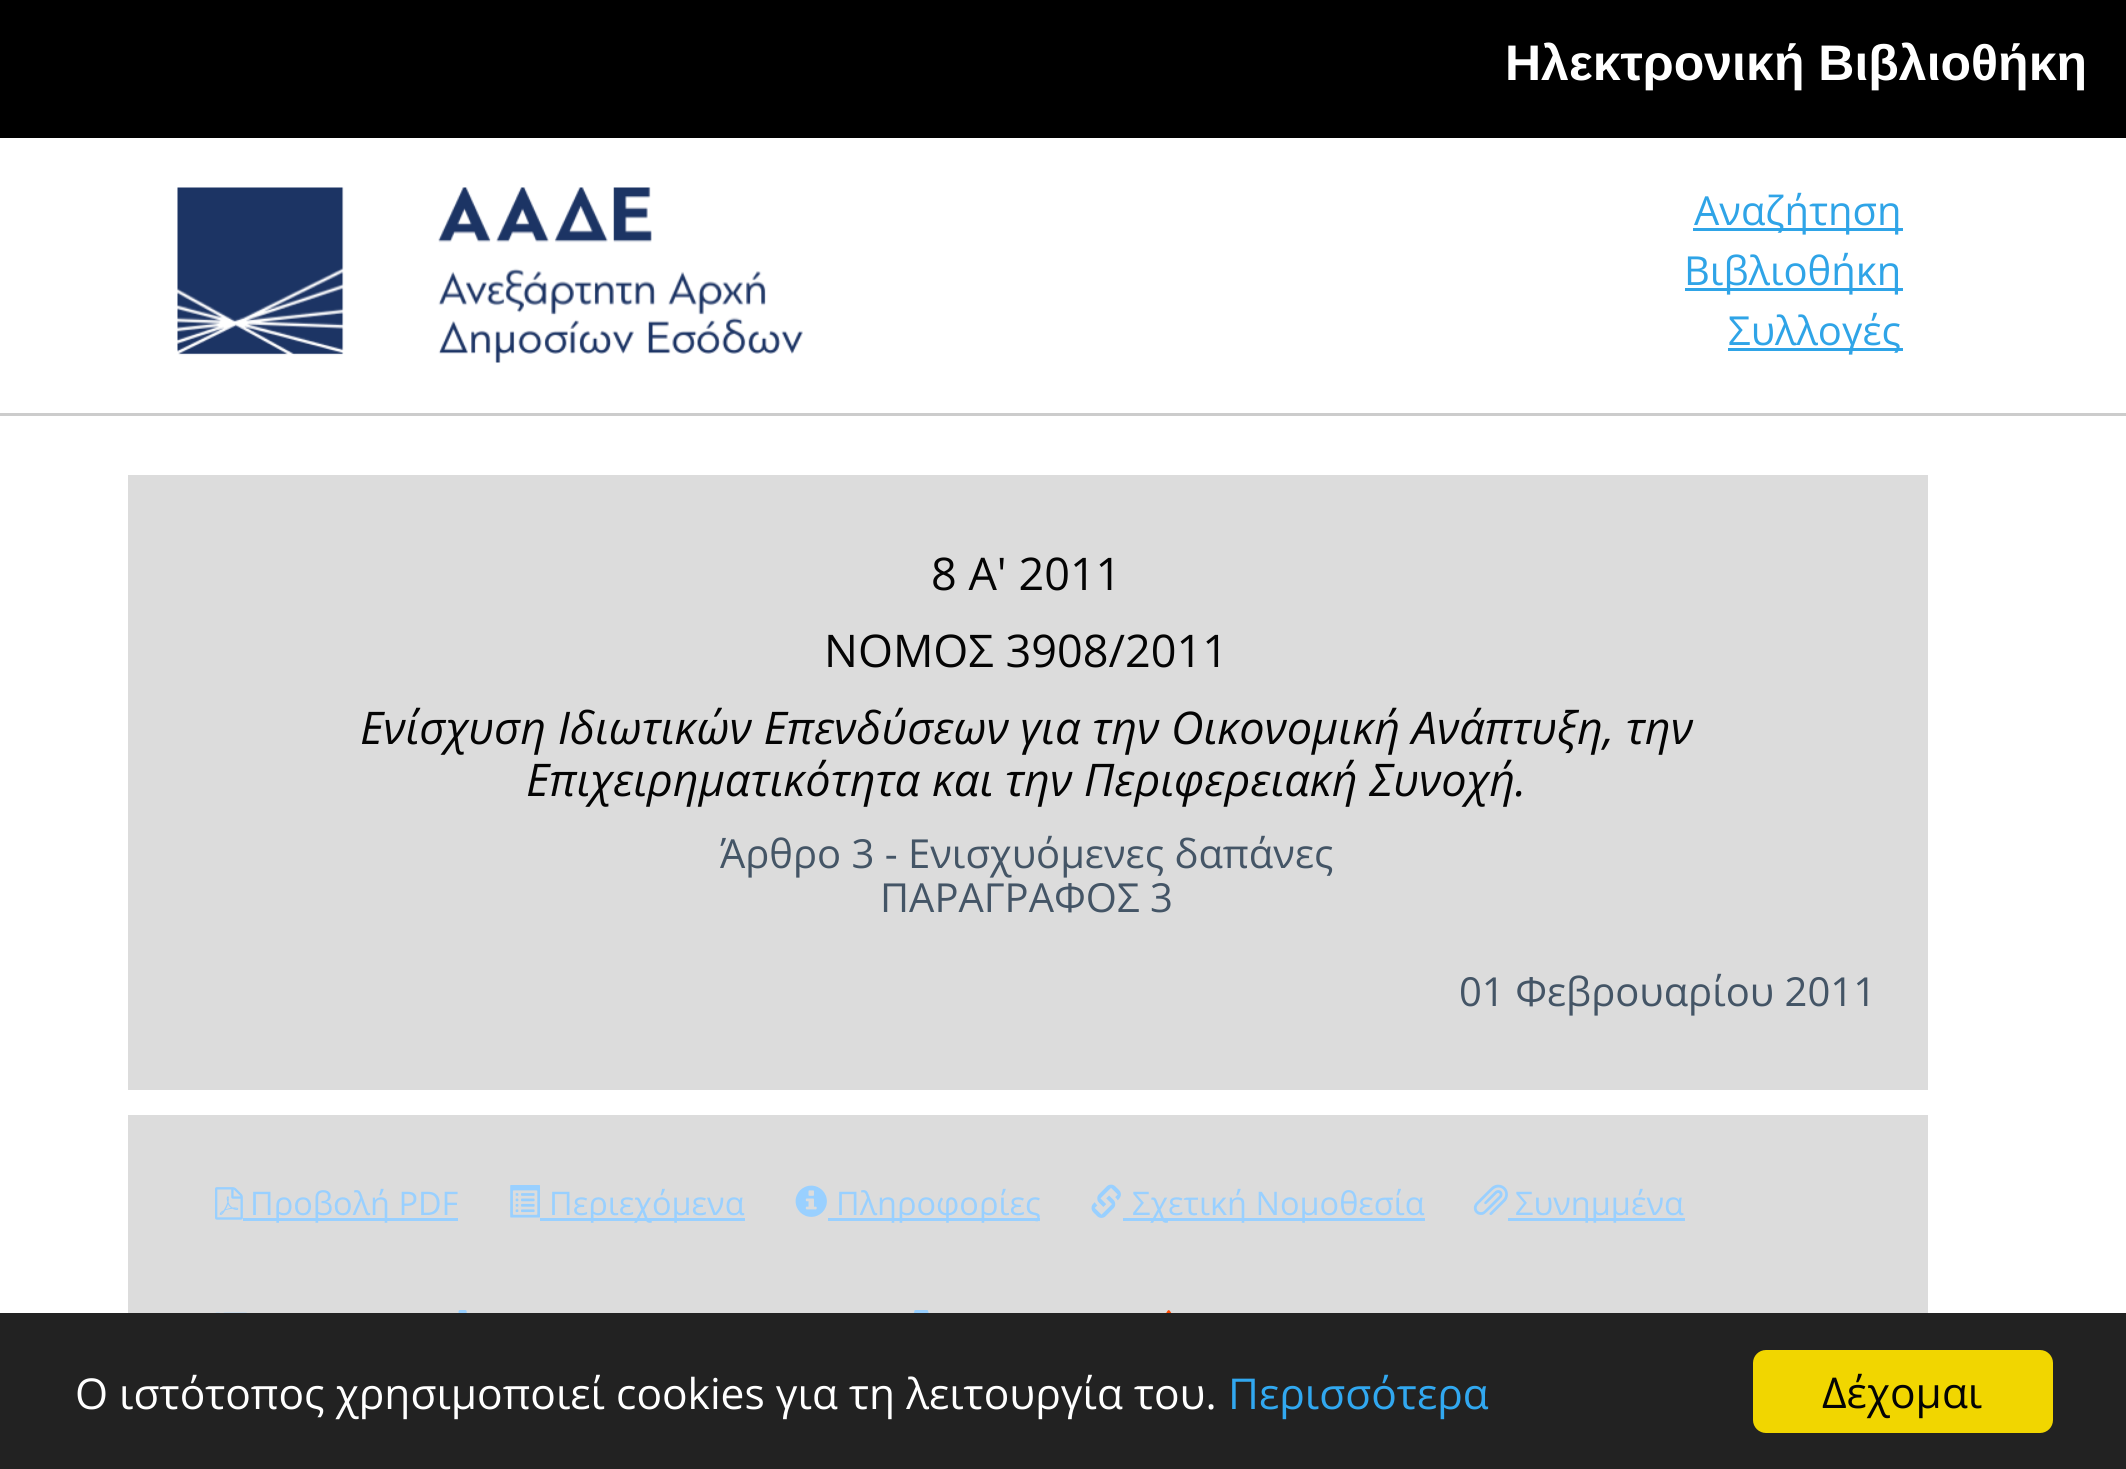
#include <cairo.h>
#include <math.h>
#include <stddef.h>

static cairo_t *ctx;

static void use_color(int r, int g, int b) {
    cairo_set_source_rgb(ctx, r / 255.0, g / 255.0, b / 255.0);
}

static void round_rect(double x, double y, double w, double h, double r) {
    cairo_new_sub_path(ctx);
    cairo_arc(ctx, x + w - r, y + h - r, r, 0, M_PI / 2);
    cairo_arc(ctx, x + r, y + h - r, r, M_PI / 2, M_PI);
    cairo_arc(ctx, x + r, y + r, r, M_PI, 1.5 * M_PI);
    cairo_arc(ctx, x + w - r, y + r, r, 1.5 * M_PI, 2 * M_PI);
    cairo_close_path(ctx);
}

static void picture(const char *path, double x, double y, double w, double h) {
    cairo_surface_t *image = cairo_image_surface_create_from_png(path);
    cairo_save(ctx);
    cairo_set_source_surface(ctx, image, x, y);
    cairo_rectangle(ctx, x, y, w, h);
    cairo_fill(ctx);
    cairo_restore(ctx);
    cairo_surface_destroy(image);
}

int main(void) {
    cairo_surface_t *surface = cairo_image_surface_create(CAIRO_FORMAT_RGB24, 2126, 1469);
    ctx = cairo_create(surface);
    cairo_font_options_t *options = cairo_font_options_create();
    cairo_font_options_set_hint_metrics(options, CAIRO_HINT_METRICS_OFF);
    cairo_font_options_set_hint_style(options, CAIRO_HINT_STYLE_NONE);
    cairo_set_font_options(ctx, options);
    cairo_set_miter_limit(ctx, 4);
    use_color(255, 255, 255);
    cairo_paint(ctx);
    use_color(204, 204, 204);
    cairo_rectangle(ctx, 0, 413, 2126, 3);
    cairo_fill(ctx);
    use_color(0, 0, 0);
    cairo_rectangle(ctx, 0, 0, 2126, 138);
    cairo_fill(ctx);
    cairo_select_font_face(ctx, "Liberation Sans", CAIRO_FONT_SLANT_NORMAL, CAIRO_FONT_WEIGHT_BOLD);
    cairo_set_font_size(ctx, 50);
    use_color(255, 255, 255);
    cairo_move_to(ctx, 1505, 80);
    cairo_show_text(ctx, "Hλεκτρονική Βιβλιοθήκη");
    picture("img1.png", 177, 187, 626, 176);
    use_color(47, 164, 231);
    cairo_rectangle(ctx, 1693, 228, 210, 3);
    cairo_fill(ctx);
    cairo_select_font_face(ctx, "Open Sans", CAIRO_FONT_SLANT_NORMAL, CAIRO_FONT_WEIGHT_NORMAL);
    cairo_set_font_size(ctx, 40);
    cairo_move_to(ctx, 1694, 225);
    cairo_show_text(ctx, "Αναζήτηση");
    cairo_rectangle(ctx, 1685, 288, 218, 3);
    cairo_fill(ctx);
    cairo_move_to(ctx, 1684, 285);
    cairo_show_text(ctx, "Βιβλιοθήκη");
    cairo_rectangle(ctx, 1728, 348, 175, 3);
    cairo_fill(ctx);
    cairo_move_to(ctx, 1728, 345);
    cairo_show_text(ctx, "Συλλογές");
    use_color(220, 220, 220);
    cairo_rectangle(ctx, 128, 475, 1800, 615);
    cairo_fill(ctx);
    cairo_set_font_size(ctx, 45);
    use_color(4, 4, 4);
    cairo_move_to(ctx, 931, 590);
    cairo_show_text(ctx, "8 Α' 2011");
    cairo_move_to(ctx, 824, 667);
    cairo_show_text(ctx, "ΝΟΜΟΣ 3908/2011");
    cairo_select_font_face(ctx, "Open Sans", CAIRO_FONT_SLANT_ITALIC, CAIRO_FONT_WEIGHT_NORMAL);
    cairo_move_to(ctx, 360, 744);
    cairo_show_text(ctx, "Ενίσχυση Ιδιωτικών Επενδύσεων για την Οικονομική Ανάπτυξη, την");
    cairo_move_to(ctx, 526, 796);
    cairo_show_text(ctx, "Επιχειρηματικότητα και την Περιφερειακή Συνοχή.");
    cairo_select_font_face(ctx, "Open Sans", CAIRO_FONT_SLANT_NORMAL, CAIRO_FONT_WEIGHT_NORMAL);
    cairo_set_font_size(ctx, 40);
    use_color(68, 85, 102);
    cairo_move_to(ctx, 720, 868);
    cairo_show_text(ctx, "Άρθρο 3 - Ενισχυόμενες δαπάνες");
    cairo_move_to(ctx, 880, 912);
    cairo_show_text(ctx, "ΠΑΡΑΓΡΑΦΟΣ 3");
    cairo_move_to(ctx, 1459, 1006);
    cairo_show_text(ctx, "01 Φεβρουαρίου 2011");
    use_color(220, 220, 220);
    cairo_rectangle(ctx, 128, 1115, 1800, 198);
    cairo_fill(ctx);
    picture("img2.png", 215, 1187, 28, 33);
    use_color(153, 208, 255);
    cairo_rectangle(ctx, 243, 1218, 215, 3);
    cairo_fill(ctx);
    cairo_set_font_size(ctx, 32.5);
    cairo_move_to(ctx, 250, 1215);
    cairo_show_text(ctx, "Προβολή PDF");
    picture("img3.png", 510, 1185, 30, 33);
    cairo_rectangle(ctx, 540, 1218, 205, 3);
    cairo_fill(ctx);
    cairo_move_to(ctx, 549, 1215);
    cairo_show_text(ctx, "Περιεχόμενα");
    picture("img4.png", 795, 1185, 32, 32);
    cairo_rectangle(ctx, 828, 1218, 212, 3);
    cairo_fill(ctx);
    cairo_move_to(ctx, 836, 1215);
    cairo_show_text(ctx, "Πληροφορίες");
    picture("img5.png", 1091, 1184, 30, 34);
    cairo_rectangle(ctx, 1123, 1218, 302, 3);
    cairo_fill(ctx);
    cairo_move_to(ctx, 1132, 1215);
    cairo_show_text(ctx, "Σχετική Νομοθεσία");
    picture("img6.png", 1473, 1184, 35, 31);
    cairo_rectangle(ctx, 1508, 1218, 177, 3);
    cairo_fill(ctx);
    cairo_move_to(ctx, 1515, 1215);
    cairo_show_text(ctx, "Συνημμένα");
    picture("img7.png", 215, 1312, 32, 1);
    picture("img8.png", 458, 1310, 9, 3);
    picture("img9.png", 913, 1310, 16, 3);
    picture("img10.png", 1166, 1310, 6, 3);
    use_color(34, 34, 34);
    cairo_rectangle(ctx, 0, 1313, 2126, 156);
    cairo_fill(ctx);
    cairo_set_font_size(ctx, 42.5);
    use_color(255, 255, 255);
    cairo_move_to(ctx, 75, 1409);
    cairo_show_text(ctx, "Ο ιστότοπος χρησιμοποιεί cookies για τη λειτουργία του.");
    use_color(49, 168, 240);
    cairo_move_to(ctx, 1228, 1409);
    cairo_show_text(ctx, "Περισσότερα");
    use_color(241, 214, 0);
    round_rect(1753, 1350, 300, 83, 13);
    cairo_fill(ctx);
    use_color(4, 4, 4);
    cairo_move_to(ctx, 1822, 1408);
    cairo_show_text(ctx, "Δέχομαι");
    cairo_surface_write_to_png(surface, "result.png");
    cairo_font_options_destroy(options);
    cairo_destroy(ctx);
    cairo_surface_destroy(surface);
    return 0;
}
